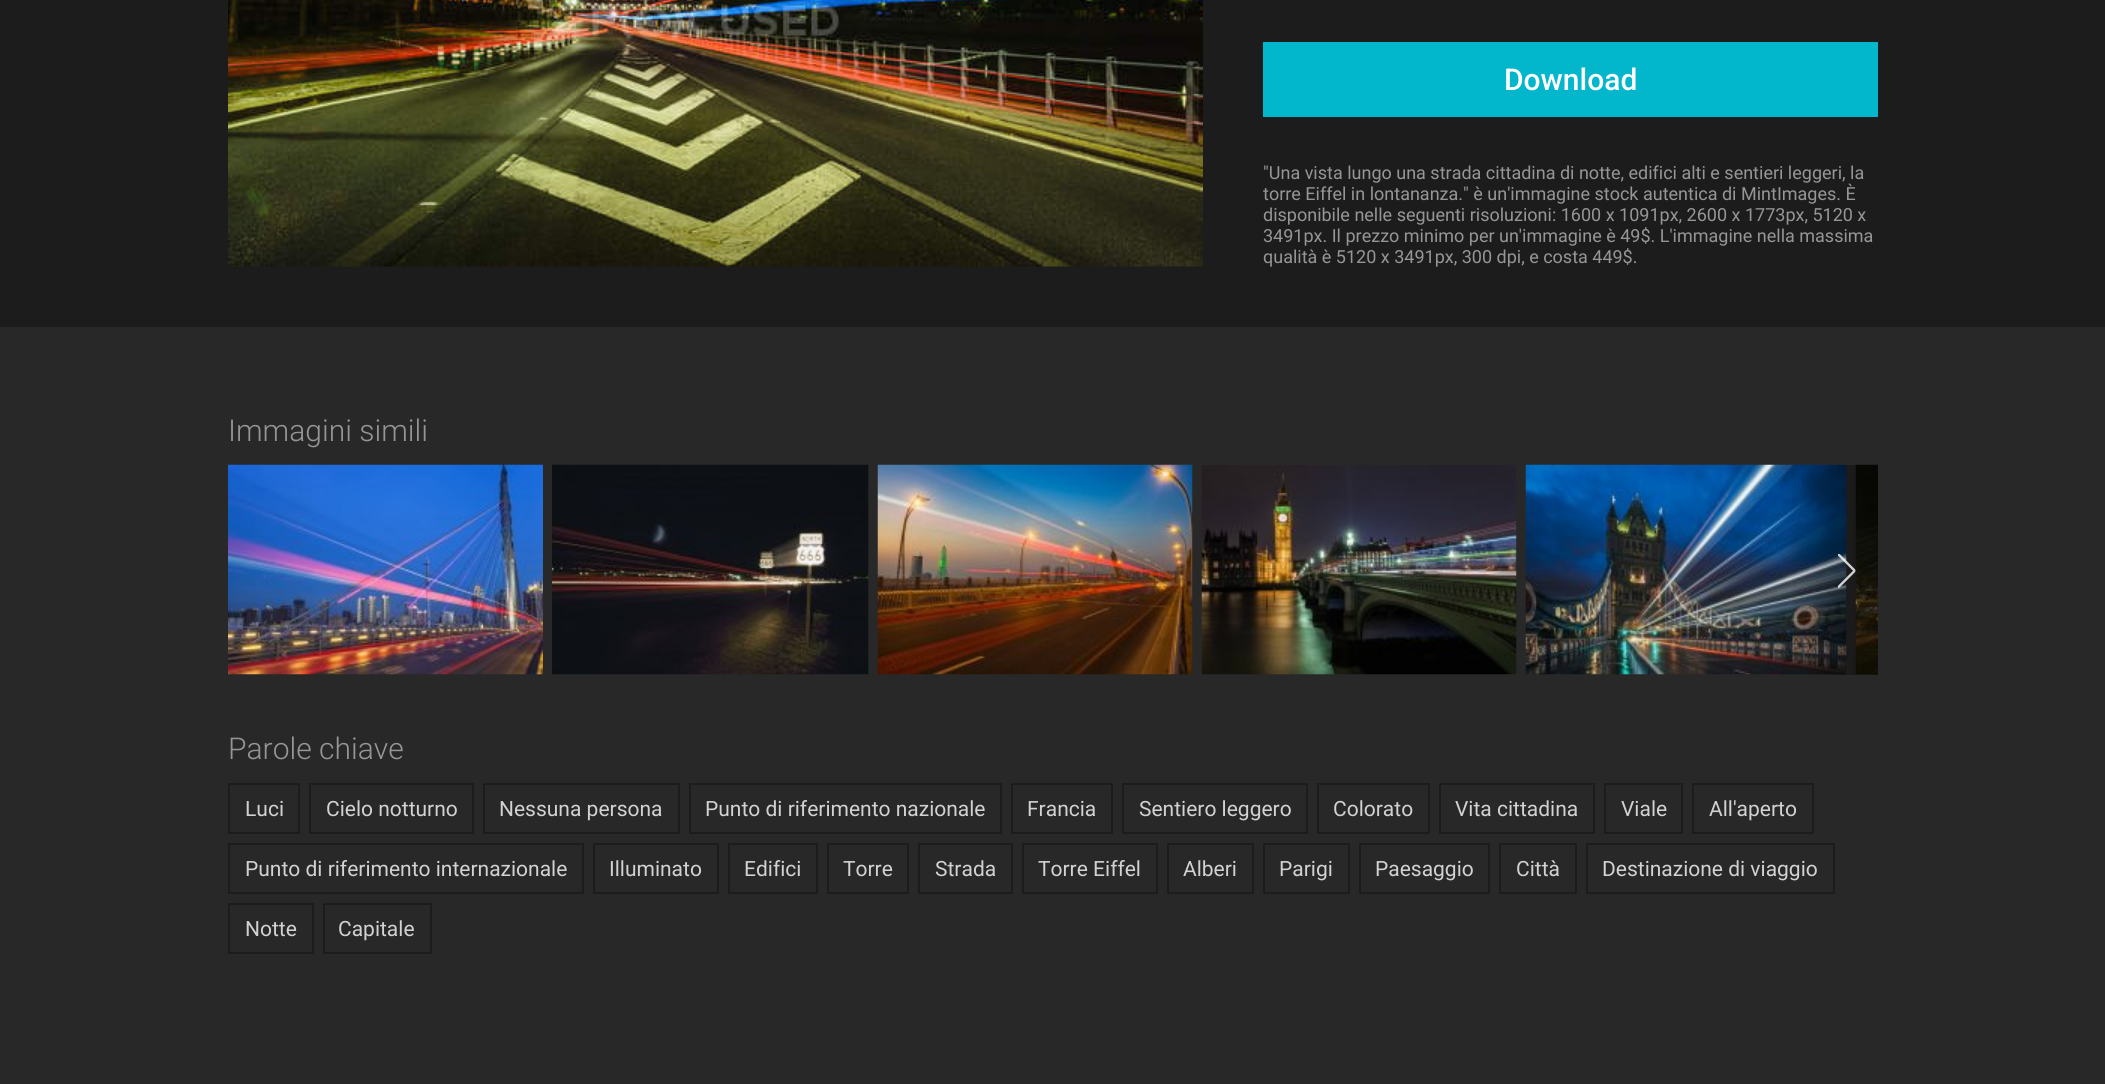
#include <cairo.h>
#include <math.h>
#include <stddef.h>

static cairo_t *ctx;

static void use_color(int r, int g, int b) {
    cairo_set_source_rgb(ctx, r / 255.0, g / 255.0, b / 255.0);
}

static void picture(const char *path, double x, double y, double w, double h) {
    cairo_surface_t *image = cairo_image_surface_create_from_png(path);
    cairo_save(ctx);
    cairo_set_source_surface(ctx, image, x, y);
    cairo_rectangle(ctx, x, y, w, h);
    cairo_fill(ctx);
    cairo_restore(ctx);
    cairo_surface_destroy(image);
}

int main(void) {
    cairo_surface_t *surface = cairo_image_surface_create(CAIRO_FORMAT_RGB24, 2105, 1084);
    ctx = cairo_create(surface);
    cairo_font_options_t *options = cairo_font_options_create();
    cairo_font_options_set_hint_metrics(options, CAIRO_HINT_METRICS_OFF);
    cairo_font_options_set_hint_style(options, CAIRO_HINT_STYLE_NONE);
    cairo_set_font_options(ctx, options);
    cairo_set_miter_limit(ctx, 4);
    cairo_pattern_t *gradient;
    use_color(40, 40, 40);
    cairo_paint(ctx);
    use_color(28, 28, 28);
    cairo_rectangle(ctx, 0, 0, 2105, 327);
    cairo_fill(ctx);
    picture("img1.png", 228, 0, 975, 267);
    use_color(2, 182, 203);
    cairo_rectangle(ctx, 1263, 42, 615, 75);
    cairo_fill(ctx);
    cairo_select_font_face(ctx, "Roboto Medium", CAIRO_FONT_SLANT_NORMAL, CAIRO_FONT_WEIGHT_NORMAL);
    cairo_set_font_size(ctx, 30);
    use_color(255, 255, 255);
    cairo_move_to(ctx, 1504, 90);
    cairo_show_text(ctx, "Download");
    cairo_select_font_face(ctx, "Roboto", CAIRO_FONT_SLANT_NORMAL, CAIRO_FONT_WEIGHT_NORMAL);
    cairo_set_font_size(ctx, 18);
    use_color(150, 150, 150);
    cairo_move_to(ctx, 1263, 179);
    cairo_show_text(ctx, "\"Una vista lungo una strada cittadina di notte, edifici alti e sentieri leggeri, la");
    cairo_move_to(ctx, 1263, 200);
    cairo_show_text(ctx, "torre Eiffel in lontananza.\" è un'immagine stock autentica di MintImages. È");
    cairo_move_to(ctx, 1263, 221);
    cairo_show_text(ctx, "disponibile nelle seguenti risoluzioni: 1600 x 1091px, 2600 x 1773px, 5120 x");
    cairo_move_to(ctx, 1263, 242);
    cairo_show_text(ctx, "3491px. Il prezzo minimo per un'immagine è 49$. L'immagine nella massima");
    cairo_move_to(ctx, 1263, 263);
    cairo_show_text(ctx, "qualità è 5120 x 3491px, 300 dpi, e costa 449$.");
    cairo_select_font_face(ctx, "Roboto Light", CAIRO_FONT_SLANT_NORMAL, CAIRO_FONT_WEIGHT_NORMAL);
    cairo_set_font_size(ctx, 30);
    cairo_move_to(ctx, 228, 441);
    cairo_show_text(ctx, "Immagini simili");
    picture("img2.png", 228, 464, 315, 211);
    picture("img3.png", 552, 464, 317, 211);
    picture("img4.png", 877, 464, 316, 211);
    picture("img5.png", 1201, 465, 316, 210);
    picture("img6.png", 1525, 464, 322, 211);
    picture("img7.png", 1855, 464, 23, 211);
    gradient = cairo_pattern_create_linear(1878, 570, 1788, 570);
    cairo_pattern_add_color_stop_rgba(gradient, 0, 0, 0, 0, 0.48);
    cairo_pattern_add_color_stop_rgba(gradient, 1, 0, 0, 0, 0);
    cairo_set_source(ctx, gradient);
    cairo_pattern_destroy(gradient);
    cairo_rectangle(ctx, 1792, 465, 86, 210);
    cairo_fill(ctx);
    picture("img8.png", 1838, 554, 18, 34);
    use_color(150, 150, 150);
    cairo_move_to(ctx, 228, 759);
    cairo_show_text(ctx, "Parole chiave");
    cairo_rectangle(ctx, 229, 784, 70, 49);
    use_color(28, 28, 28);
    cairo_stroke(ctx);
    cairo_select_font_face(ctx, "Roboto", CAIRO_FONT_SLANT_NORMAL, CAIRO_FONT_WEIGHT_NORMAL);
    cairo_set_font_size(ctx, 21);
    use_color(210, 210, 210);
    cairo_move_to(ctx, 245, 816);
    cairo_show_text(ctx, "Luci");
    cairo_rectangle(ctx, 310, 784, 163, 49);
    use_color(28, 28, 28);
    cairo_stroke(ctx);
    use_color(210, 210, 210);
    cairo_move_to(ctx, 326, 816);
    cairo_show_text(ctx, "Cielo notturno");
    cairo_rectangle(ctx, 484, 784, 195, 49);
    use_color(28, 28, 28);
    cairo_stroke(ctx);
    use_color(210, 210, 210);
    cairo_move_to(ctx, 499, 816);
    cairo_show_text(ctx, "Nessuna persona");
    cairo_rectangle(ctx, 690, 784, 311, 49);
    use_color(28, 28, 28);
    cairo_stroke(ctx);
    use_color(210, 210, 210);
    cairo_move_to(ctx, 705, 816);
    cairo_show_text(ctx, "Punto di riferimento nazionale");
    cairo_rectangle(ctx, 1012, 784, 100, 49);
    use_color(28, 28, 28);
    cairo_stroke(ctx);
    use_color(210, 210, 210);
    cairo_move_to(ctx, 1027, 816);
    cairo_show_text(ctx, "Francia");
    cairo_rectangle(ctx, 1123, 784, 184, 49);
    use_color(28, 28, 28);
    cairo_stroke(ctx);
    use_color(210, 210, 210);
    cairo_move_to(ctx, 1139, 816);
    cairo_show_text(ctx, "Sentiero leggero");
    cairo_rectangle(ctx, 1318, 784, 111, 49);
    use_color(28, 28, 28);
    cairo_stroke(ctx);
    use_color(210, 210, 210);
    cairo_move_to(ctx, 1333, 816);
    cairo_show_text(ctx, "Colorato");
    cairo_rectangle(ctx, 1440, 784, 154, 49);
    use_color(28, 28, 28);
    cairo_stroke(ctx);
    use_color(210, 210, 210);
    cairo_move_to(ctx, 1455, 816);
    cairo_show_text(ctx, "Vita cittadina");
    cairo_rectangle(ctx, 1605, 784, 77, 49);
    use_color(28, 28, 28);
    cairo_stroke(ctx);
    use_color(210, 210, 210);
    cairo_move_to(ctx, 1621, 816);
    cairo_show_text(ctx, "Viale");
    cairo_rectangle(ctx, 1693, 784, 120, 49);
    use_color(28, 28, 28);
    cairo_stroke(ctx);
    use_color(210, 210, 210);
    cairo_move_to(ctx, 1709, 816);
    cairo_show_text(ctx, "All'aperto");
    cairo_rectangle(ctx, 229, 844, 354, 49);
    use_color(28, 28, 28);
    cairo_stroke(ctx);
    use_color(210, 210, 210);
    cairo_move_to(ctx, 245, 876);
    cairo_show_text(ctx, "Punto di riferimento internazionale");
    cairo_rectangle(ctx, 594, 844, 124, 49);
    use_color(28, 28, 28);
    cairo_stroke(ctx);
    use_color(210, 210, 210);
    cairo_move_to(ctx, 609, 876);
    cairo_show_text(ctx, "Illuminato");
    cairo_rectangle(ctx, 729, 844, 88, 49);
    use_color(28, 28, 28);
    cairo_stroke(ctx);
    use_color(210, 210, 210);
    cairo_move_to(ctx, 744, 876);
    cairo_show_text(ctx, "Edifici");
    cairo_rectangle(ctx, 828, 844, 80, 49);
    use_color(28, 28, 28);
    cairo_stroke(ctx);
    use_color(210, 210, 210);
    cairo_move_to(ctx, 843, 876);
    cairo_show_text(ctx, "Torre");
    cairo_rectangle(ctx, 919, 844, 93, 49);
    use_color(28, 28, 28);
    cairo_stroke(ctx);
    use_color(210, 210, 210);
    cairo_move_to(ctx, 935, 876);
    cairo_show_text(ctx, "Strada");
    cairo_rectangle(ctx, 1023, 844, 134, 49);
    use_color(28, 28, 28);
    cairo_stroke(ctx);
    use_color(210, 210, 210);
    cairo_move_to(ctx, 1038, 876);
    cairo_show_text(ctx, "Torre Eiffel");
    cairo_rectangle(ctx, 1168, 844, 85, 49);
    use_color(28, 28, 28);
    cairo_stroke(ctx);
    use_color(210, 210, 210);
    cairo_move_to(ctx, 1183, 876);
    cairo_show_text(ctx, "Alberi");
    cairo_rectangle(ctx, 1264, 844, 85, 49);
    use_color(28, 28, 28);
    cairo_stroke(ctx);
    use_color(210, 210, 210);
    cairo_move_to(ctx, 1279, 876);
    cairo_show_text(ctx, "Parigi");
    cairo_rectangle(ctx, 1360, 844, 129, 49);
    use_color(28, 28, 28);
    cairo_stroke(ctx);
    use_color(210, 210, 210);
    cairo_move_to(ctx, 1375, 876);
    cairo_show_text(ctx, "Paesaggio");
    cairo_rectangle(ctx, 1500, 844, 76, 49);
    use_color(28, 28, 28);
    cairo_stroke(ctx);
    use_color(210, 210, 210);
    cairo_move_to(ctx, 1516, 876);
    cairo_show_text(ctx, "Città");
    cairo_rectangle(ctx, 1587, 844, 247, 49);
    use_color(28, 28, 28);
    cairo_stroke(ctx);
    use_color(210, 210, 210);
    cairo_move_to(ctx, 1602, 876);
    cairo_show_text(ctx, "Destinazione di viaggio");
    cairo_rectangle(ctx, 229, 904, 84, 49);
    use_color(28, 28, 28);
    cairo_stroke(ctx);
    use_color(210, 210, 210);
    cairo_move_to(ctx, 245, 936);
    cairo_show_text(ctx, "Notte");
    cairo_rectangle(ctx, 324, 904, 107, 49);
    use_color(28, 28, 28);
    cairo_stroke(ctx);
    use_color(210, 210, 210);
    cairo_move_to(ctx, 338, 936);
    cairo_show_text(ctx, "Capitale");
    cairo_surface_write_to_png(surface, "result.png");
    cairo_font_options_destroy(options);
    cairo_destroy(ctx);
    cairo_surface_destroy(surface);
    return 0;
}
